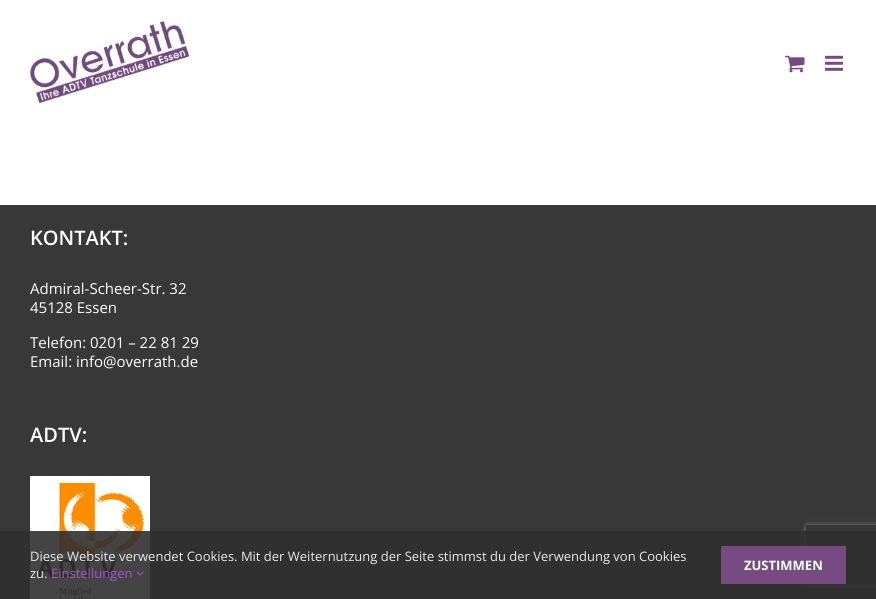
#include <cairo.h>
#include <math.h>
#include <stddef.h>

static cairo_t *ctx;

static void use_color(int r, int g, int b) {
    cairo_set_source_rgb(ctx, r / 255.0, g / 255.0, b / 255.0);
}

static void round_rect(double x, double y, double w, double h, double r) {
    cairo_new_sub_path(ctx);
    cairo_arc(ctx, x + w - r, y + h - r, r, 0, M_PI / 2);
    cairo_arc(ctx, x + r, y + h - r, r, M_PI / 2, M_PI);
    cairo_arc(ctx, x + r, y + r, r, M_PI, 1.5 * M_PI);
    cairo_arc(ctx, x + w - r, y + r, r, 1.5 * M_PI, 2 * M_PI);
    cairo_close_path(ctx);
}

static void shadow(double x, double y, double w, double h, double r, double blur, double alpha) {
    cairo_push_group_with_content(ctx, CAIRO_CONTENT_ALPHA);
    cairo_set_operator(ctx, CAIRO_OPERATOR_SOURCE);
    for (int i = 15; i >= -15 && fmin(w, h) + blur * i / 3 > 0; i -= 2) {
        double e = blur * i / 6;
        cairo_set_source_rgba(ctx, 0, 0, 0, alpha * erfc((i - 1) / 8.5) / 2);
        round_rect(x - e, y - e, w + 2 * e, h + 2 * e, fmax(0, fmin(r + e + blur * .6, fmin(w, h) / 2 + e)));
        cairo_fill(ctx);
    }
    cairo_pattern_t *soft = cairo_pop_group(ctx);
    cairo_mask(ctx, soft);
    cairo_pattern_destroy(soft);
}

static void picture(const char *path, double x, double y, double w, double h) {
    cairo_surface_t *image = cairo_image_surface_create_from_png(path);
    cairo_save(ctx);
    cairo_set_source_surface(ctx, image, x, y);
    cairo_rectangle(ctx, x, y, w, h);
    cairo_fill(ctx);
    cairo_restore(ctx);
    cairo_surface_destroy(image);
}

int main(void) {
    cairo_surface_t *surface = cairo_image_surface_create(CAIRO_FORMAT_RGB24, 876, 599);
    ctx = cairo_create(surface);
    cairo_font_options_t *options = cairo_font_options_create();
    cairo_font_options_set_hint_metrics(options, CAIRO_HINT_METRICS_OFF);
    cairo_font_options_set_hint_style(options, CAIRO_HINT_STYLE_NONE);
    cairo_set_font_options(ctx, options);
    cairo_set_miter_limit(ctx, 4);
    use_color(255, 255, 255);
    cairo_paint(ctx);
    picture("img1.png", 30, 21, 160, 83);
    picture("img2.png", 785, 55, 20, 18);
    picture("img3.png", 825, 55, 18, 16);
    use_color(56, 56, 56);
    cairo_rectangle(ctx, 0, 205, 876, 394);
    cairo_fill(ctx);
    cairo_select_font_face(ctx, "Open Sans SemiBold", CAIRO_FONT_SLANT_NORMAL, CAIRO_FONT_WEIGHT_NORMAL);
    cairo_set_font_size(ctx, 20);
    use_color(255, 255, 255);
    cairo_move_to(ctx, 30, 245);
    cairo_show_text(ctx, "KONTAKT:");
    cairo_select_font_face(ctx, "Open Sans", CAIRO_FONT_SLANT_NORMAL, CAIRO_FONT_WEIGHT_NORMAL);
    cairo_set_font_size(ctx, 15);
    cairo_move_to(ctx, 30, 294);
    cairo_show_text(ctx, "Admiral-Scheer-Str. 32");
    cairo_move_to(ctx, 30, 313);
    cairo_show_text(ctx, "45128 Essen");
    cairo_move_to(ctx, 30, 348);
    cairo_show_text(ctx, "Telefon: 0201 – 22 81 29");
    cairo_move_to(ctx, 30, 367);
    cairo_show_text(ctx, "Email: info@overrath.de");
    cairo_select_font_face(ctx, "Open Sans SemiBold", CAIRO_FONT_SLANT_NORMAL, CAIRO_FONT_WEIGHT_NORMAL);
    cairo_set_font_size(ctx, 20);
    cairo_move_to(ctx, 30, 442);
    cairo_show_text(ctx, "ADTV:");
    picture("img4.png", 30, 476, 120, 123);
    cairo_save(ctx);
    cairo_set_fill_rule(ctx, CAIRO_FILL_RULE_EVEN_ODD);
    cairo_new_path(ctx);
    cairo_move_to(ctx, 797, 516);
    cairo_line_to(ctx, 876, 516);
    cairo_line_to(ctx, 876, 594);
    cairo_line_to(ctx, 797, 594);
    cairo_close_path(ctx);
    cairo_move_to(ctx, 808, 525);
    cairo_line_to(ctx, 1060, 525);
    cairo_curve_to(ctx, 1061, 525, 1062, 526, 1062, 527);
    cairo_line_to(ctx, 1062, 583);
    cairo_curve_to(ctx, 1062, 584, 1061, 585, 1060, 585);
    cairo_line_to(ctx, 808, 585);
    cairo_curve_to(ctx, 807, 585, 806, 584, 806, 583);
    cairo_line_to(ctx, 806, 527);
    cairo_curve_to(ctx, 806, 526, 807, 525, 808, 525);
    cairo_close_path(ctx);
    cairo_clip(ctx);
    use_color(128, 128, 128);
    shadow(806, 525, 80, 60, 2, 2.5, 1);
    cairo_restore(ctx);
    cairo_set_source_rgba(ctx, 0.188, 0.188, 0.188, 0.9);
    cairo_rectangle(ctx, 0, 531, 876, 68);
    cairo_fill(ctx);
    cairo_select_font_face(ctx, "Open Sans", CAIRO_FONT_SLANT_NORMAL, CAIRO_FONT_WEIGHT_NORMAL);
    cairo_set_font_size(ctx, 13);
    use_color(232, 232, 232);
    cairo_move_to(ctx, 30, 561);
    cairo_show_text(ctx, "Diese Website verwendet Cookies. Mit der Weiternutzung der Seite stimmst du der Verwendung von Cookies");
    cairo_move_to(ctx, 30, 578);
    cairo_show_text(ctx, "zu.");
    use_color(158, 87, 191);
    cairo_move_to(ctx, 51, 578);
    cairo_show_text(ctx, "Einstellungen");
    picture("img5.png", 136, 571, 8, 5);
    use_color(117, 75, 128);
    cairo_rectangle(ctx, 721, 546, 125, 38);
    cairo_fill(ctx);
    cairo_select_font_face(ctx, "Open Sans", CAIRO_FONT_SLANT_NORMAL, CAIRO_FONT_WEIGHT_BOLD);
    use_color(255, 255, 255);
    cairo_move_to(ctx, 744, 570);
    cairo_show_text(ctx, "ZUSTIMMEN");
    cairo_surface_write_to_png(surface, "result.png");
    cairo_font_options_destroy(options);
    cairo_destroy(ctx);
    cairo_surface_destroy(surface);
    return 0;
}
